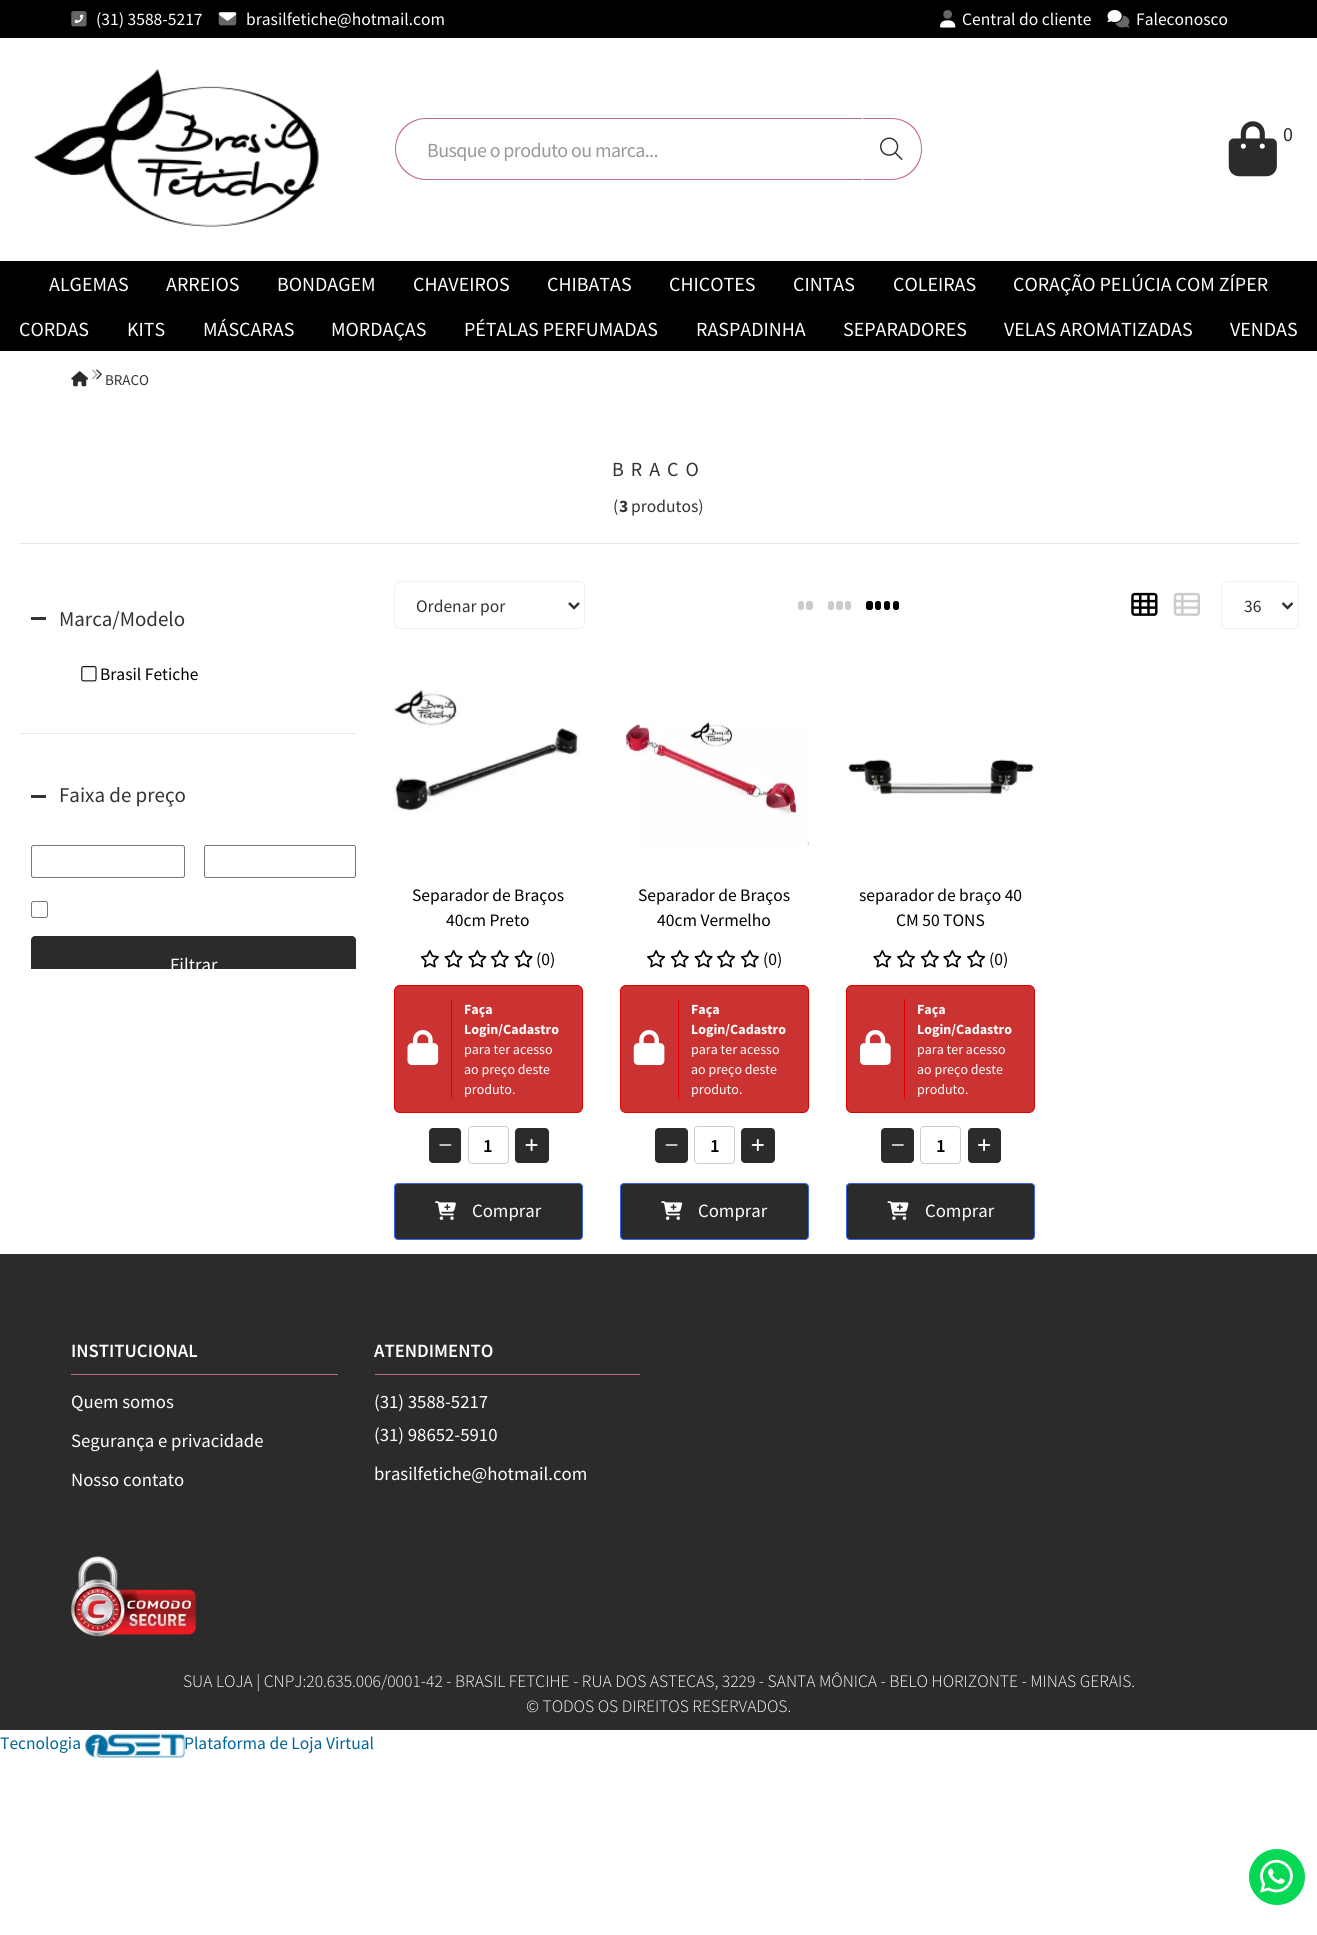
#include <cairo.h>
#include <math.h>
#include <stddef.h>

static cairo_t *ctx;

static void use_color(int r, int g, int b) {
    cairo_set_source_rgb(ctx, r / 255.0, g / 255.0, b / 255.0);
}

static void spaced_text(double x, double y, const char *s, double letter, double word) {
    cairo_move_to(ctx, x, y);
    while (*s) {
        char ch[5] = {0};
        int n = 0;
        do ch[n++] = *s++; while ((*s & 0xC0) == 0x80);
        cairo_show_text(ctx, ch);
        cairo_rel_move_to(ctx, letter + word * (*ch == ' '), 0);
    }
}

static void round_rect(double x, double y, double w, double h, double r) {
    cairo_new_sub_path(ctx);
    cairo_arc(ctx, x + w - r, y + h - r, r, 0, M_PI / 2);
    cairo_arc(ctx, x + r, y + h - r, r, M_PI / 2, M_PI);
    cairo_arc(ctx, x + r, y + r, r, M_PI, 1.5 * M_PI);
    cairo_arc(ctx, x + w - r, y + r, r, 1.5 * M_PI, 2 * M_PI);
    cairo_close_path(ctx);
}

static void picture(const char *path, double x, double y, double w, double h) {
    cairo_surface_t *image = cairo_image_surface_create_from_png(path);
    cairo_save(ctx);
    cairo_set_source_surface(ctx, image, x, y);
    cairo_rectangle(ctx, x, y, w, h);
    cairo_fill(ctx);
    cairo_restore(ctx);
    cairo_surface_destroy(image);
}

int main(void) {
    cairo_surface_t *surface = cairo_image_surface_create(CAIRO_FORMAT_RGB24, 1317, 1935);
    ctx = cairo_create(surface);
    cairo_font_options_t *options = cairo_font_options_create();
    cairo_font_options_set_hint_metrics(options, CAIRO_HINT_METRICS_OFF);
    cairo_font_options_set_hint_style(options, CAIRO_HINT_STYLE_NONE);
    cairo_set_font_options(ctx, options);
    cairo_set_miter_limit(ctx, 4);
    use_color(255, 255, 255);
    cairo_paint(ctx);
    use_color(0, 0, 0);
    cairo_rectangle(ctx, 0, 0, 1317, 38);
    cairo_fill(ctx);
    picture("img1.png", 71, 11, 16, 16);
    cairo_select_font_face(ctx, "Source Sans Pro", CAIRO_FONT_SLANT_NORMAL, CAIRO_FONT_WEIGHT_NORMAL);
    cairo_set_font_size(ctx, 17.5);
    use_color(255, 255, 255);
    cairo_move_to(ctx, 96, 25);
    cairo_show_text(ctx, "(31) 3588-5217");
    picture("img2.png", 218, 12, 19, 14);
    cairo_move_to(ctx, 246, 25);
    cairo_show_text(ctx, "brasilfetiche@hotmail.com");
    picture("img3.png", 940, 10, 16, 18);
    cairo_move_to(ctx, 962, 25);
    cairo_show_text(ctx, "Central do cliente");
    picture("img4.png", 1107, 10, 23, 18);
    cairo_move_to(ctx, 1136, 25);
    cairo_show_text(ctx, "Faleconosco");
    picture("img5.png", 33, 69, 286, 159);
    picture("img6.png", 1228, 121, 49, 56);
    cairo_set_font_size(ctx, 20);
    use_color(43, 43, 43);
    cairo_move_to(ctx, 1283, 141);
    cairo_show_text(ctx, "0");
    use_color(194, 108, 128);
    cairo_set_fill_rule(ctx, CAIRO_FILL_RULE_EVEN_ODD);
    cairo_new_path(ctx);
    cairo_move_to(ctx, 862, 118);
    cairo_line_to(ctx, 891, 118);
    cairo_curve_to(ctx, 909, 118, 922, 131, 922, 149);
    cairo_curve_to(ctx, 922, 166, 909, 180, 891, 180);
    cairo_line_to(ctx, 862, 180);
    cairo_close_path(ctx);
    cairo_move_to(ctx, 862, 119);
    cairo_line_to(ctx, 891, 119);
    cairo_curve_to(ctx, 908, 119, 921, 132, 921, 149);
    cairo_curve_to(ctx, 921, 165, 908, 179, 891, 179);
    cairo_line_to(ctx, 862, 179);
    cairo_close_path(ctx);
    cairo_fill(ctx);
    use_color(255, 255, 255);
    cairo_new_path(ctx);
    cairo_move_to(ctx, 426, 118);
    cairo_line_to(ctx, 863, 118);
    cairo_line_to(ctx, 863, 180);
    cairo_line_to(ctx, 426, 180);
    cairo_curve_to(ctx, 409, 180, 395, 166, 395, 149);
    cairo_curve_to(ctx, 395, 132, 409, 118, 426, 118);
    cairo_close_path(ctx);
    cairo_fill(ctx);
    use_color(194, 108, 128);
    cairo_new_path(ctx);
    cairo_move_to(ctx, 426, 118);
    cairo_line_to(ctx, 862, 118);
    cairo_line_to(ctx, 862, 180);
    cairo_line_to(ctx, 426, 180);
    cairo_curve_to(ctx, 409, 180, 395, 166, 395, 149);
    cairo_curve_to(ctx, 395, 131, 409, 118, 426, 118);
    cairo_close_path(ctx);
    cairo_move_to(ctx, 426, 119);
    cairo_line_to(ctx, 862, 119);
    cairo_line_to(ctx, 862, 179);
    cairo_line_to(ctx, 426, 179);
    cairo_curve_to(ctx, 410, 179, 396, 165, 396, 149);
    cairo_curve_to(ctx, 396, 132, 410, 119, 426, 119);
    cairo_close_path(ctx);
    cairo_fill(ctx);
    cairo_save(ctx);
    cairo_set_fill_rule(ctx, CAIRO_FILL_RULE_WINDING);
    cairo_rectangle(ctx, 428, 136, 403, 25);
    cairo_clip(ctx);
    use_color(153, 153, 153);
    spaced_text(427, 157, "Busque o produto ou marca...", -0.6, 0);
    cairo_restore(ctx);
    picture("img7.png", 880, 137, 23, 23);
    use_color(0, 0, 0);
    cairo_rectangle(ctx, 0, 261, 1317, 90);
    cairo_fill(ctx);
    use_color(255, 255, 255);
    cairo_move_to(ctx, 49, 291);
    cairo_show_text(ctx, "ALGEMAS");
    cairo_move_to(ctx, 166, 291);
    cairo_show_text(ctx, "ARREIOS");
    cairo_move_to(ctx, 277, 291);
    cairo_show_text(ctx, "BONDAGEM");
    cairo_move_to(ctx, 413, 291);
    cairo_show_text(ctx, "CHAVEIROS");
    cairo_move_to(ctx, 547, 291);
    cairo_show_text(ctx, "CHIBATAS");
    cairo_move_to(ctx, 669, 291);
    cairo_show_text(ctx, "CHICOTES");
    cairo_move_to(ctx, 793, 291);
    cairo_show_text(ctx, "CINTAS");
    cairo_move_to(ctx, 893, 291);
    cairo_show_text(ctx, "COLEIRAS");
    cairo_move_to(ctx, 1013, 291);
    cairo_show_text(ctx, "CORAÇÃO PELÚCIA COM ZÍPER");
    cairo_move_to(ctx, 19, 336);
    cairo_show_text(ctx, "CORDAS");
    cairo_move_to(ctx, 127, 336);
    cairo_show_text(ctx, "KITS");
    cairo_move_to(ctx, 203, 336);
    cairo_show_text(ctx, "MÁSCARAS");
    cairo_move_to(ctx, 331, 336);
    cairo_show_text(ctx, "MORDAÇAS");
    cairo_move_to(ctx, 464, 336);
    cairo_show_text(ctx, "PÉTALAS PERFUMADAS");
    cairo_move_to(ctx, 696, 336);
    cairo_show_text(ctx, "RASPADINHA");
    cairo_move_to(ctx, 843, 336);
    cairo_show_text(ctx, "SEPARADORES");
    cairo_move_to(ctx, 1004, 336);
    cairo_show_text(ctx, "VELAS AROMATIZADAS");
    cairo_move_to(ctx, 1230, 336);
    cairo_show_text(ctx, "VENDAS");
    picture("img8.png", 71, 371, 18, 16);
    picture("img9.png", 92, 369, 10, 11);
    cairo_set_font_size(ctx, 15);
    use_color(51, 51, 51);
    cairo_move_to(ctx, 105, 385);
    cairo_show_text(ctx, "BRACO");
    use_color(232, 232, 232);
    cairo_rectangle(ctx, 19, 543, 1280, 1);
    cairo_fill(ctx);
    cairo_set_font_size(ctx, 20);
    use_color(51, 51, 51);
    spaced_text(612, 476, "BRACO", 7, 0);
    cairo_set_font_size(ctx, 17.5);
    cairo_move_to(ctx, 613, 512);
    cairo_show_text(ctx, "(");
    cairo_select_font_face(ctx, "Source Sans Pro", CAIRO_FONT_SLANT_NORMAL, CAIRO_FONT_WEIGHT_BOLD);
    cairo_move_to(ctx, 619, 512);
    cairo_show_text(ctx, "3");
    cairo_select_font_face(ctx, "Source Sans Pro", CAIRO_FONT_SLANT_NORMAL, CAIRO_FONT_WEIGHT_NORMAL);
    cairo_move_to(ctx, 631, 512);
    cairo_show_text(ctx, "produtos)");
    use_color(234, 234, 234);
    cairo_rectangle(ctx, 19, 733, 337, 1);
    cairo_fill(ctx);
    use_color(51, 51, 51);
    cairo_rectangle(ctx, 31, 617, 15, 3);
    cairo_fill(ctx);
    cairo_set_font_size(ctx, 21);
    cairo_move_to(ctx, 59, 626);
    cairo_show_text(ctx, "Marca/Modelo");
    picture("img10.png", 81, 666, 16, 16);
    cairo_set_font_size(ctx, 17.5);
    use_color(0, 0, 0);
    cairo_move_to(ctx, 100, 680);
    cairo_show_text(ctx, "Brasil Fetiche");
    use_color(51, 51, 51);
    cairo_rectangle(ctx, 31, 795, 15, 3);
    cairo_fill(ctx);
    cairo_set_font_size(ctx, 21);
    cairo_move_to(ctx, 59, 802);
    cairo_show_text(ctx, "Faixa de preço");
    round_rect(31.5, 845.5, 153, 32, 2);
    use_color(118, 118, 118);
    cairo_set_line_width(ctx, 1);
    cairo_stroke(ctx);
    round_rect(204.5, 845.5, 151, 32, 2);
    cairo_stroke(ctx);
    round_rect(31.5, 901.5, 16, 16, 2);
    cairo_stroke(ctx);
    use_color(43, 43, 43);
    cairo_new_path(ctx);
    cairo_move_to(ctx, 35, 936);
    cairo_line_to(ctx, 352, 936);
    cairo_curve_to(ctx, 354, 936, 356, 938, 356, 940);
    cairo_line_to(ctx, 356, 969);
    cairo_line_to(ctx, 31, 969);
    cairo_line_to(ctx, 31, 940);
    cairo_curve_to(ctx, 31, 938, 33, 936, 35, 936);
    cairo_close_path(ctx);
    cairo_fill(ctx);
    cairo_save(ctx);
    cairo_set_fill_rule(ctx, CAIRO_FILL_RULE_WINDING);
    cairo_rectangle(ctx, 31, 819, 325, 150);
    cairo_clip(ctx);
    cairo_set_font_size(ctx, 18.75);
    use_color(255, 255, 255);
    cairo_move_to(ctx, 170, 971);
    cairo_show_text(ctx, "Filtrar");
    cairo_restore(ctx);
    round_rect(394.5, 581.5, 190, 47, 5.5);
    use_color(240, 240, 240);
    cairo_stroke(ctx);
    cairo_new_path(ctx);
    cairo_move_to(ctx, 569, 603);
    cairo_line_to(ctx, 574, 608);
    cairo_line_to(ctx, 579, 603);
    use_color(51, 51, 51);
    cairo_set_line_width(ctx, 2.5);
    cairo_stroke(ctx);
    cairo_set_font_size(ctx, 17.5);
    cairo_move_to(ctx, 416, 612);
    cairo_show_text(ctx, "Ordenar por");
    use_color(204, 204, 204);
    round_rect(798, 601, 6, 9, 2.5);
    cairo_fill(ctx);
    round_rect(806, 601, 7, 9, 2.5);
    cairo_fill(ctx);
    round_rect(828, 601, 6, 9, 2.5);
    cairo_fill(ctx);
    round_rect(836, 601, 7, 9, 2.5);
    cairo_fill(ctx);
    round_rect(845, 601, 6, 9, 2.5);
    cairo_fill(ctx);
    use_color(0, 0, 0);
    round_rect(866, 601, 7, 9, 2.5);
    cairo_fill(ctx);
    round_rect(875, 601, 6, 9, 2.5);
    cairo_fill(ctx);
    round_rect(884, 601, 6, 9, 2.5);
    cairo_fill(ctx);
    round_rect(893, 601, 6, 9, 2.5);
    cairo_fill(ctx);
    picture("img11.png", 1131, 592, 27, 24);
    picture("img12.png", 1173, 592, 27, 24);
    round_rect(1221.5, 581.5, 77, 47, 5.5);
    use_color(240, 240, 240);
    cairo_set_line_width(ctx, 1);
    cairo_stroke(ctx);
    cairo_new_path(ctx);
    cairo_move_to(ctx, 1282.5, 603);
    cairo_line_to(ctx, 1287.5, 608);
    cairo_line_to(ctx, 1292.5, 603);
    use_color(51, 51, 51);
    cairo_set_line_width(ctx, 2.5);
    cairo_stroke(ctx);
    cairo_move_to(ctx, 1244, 612);
    cairo_show_text(ctx, "36");
    picture("img13.png", 393, 689, 187, 122);
    use_color(0, 0, 0);
    cairo_move_to(ctx, 412, 901);
    cairo_show_text(ctx, "Separador de Braços");
    cairo_move_to(ctx, 446, 926);
    cairo_show_text(ctx, "40cm Preto");
    picture("img14.png", 420, 950, 19, 18);
    picture("img15.png", 444, 950, 19, 18);
    picture("img16.png", 468, 950, 19, 18);
    picture("img14.png", 490, 950, 19, 18);
    picture("img15.png", 514, 950, 19, 18);
    cairo_move_to(ctx, 536, 965);
    cairo_show_text(ctx, "(0)");
    use_color(203, 51, 51);
    round_rect(394.5, 985.5, 188, 127, 5.5);
    cairo_fill_preserve(ctx);
    use_color(220, 0, 0);
    cairo_set_line_width(ctx, 1);
    cairo_stroke(ctx);
    picture("img17.png", 407, 1030, 32, 35);
    use_color(226, 0, 0);
    cairo_rectangle(ctx, 451, 999, 1, 100);
    cairo_fill(ctx);
    cairo_select_font_face(ctx, "Source Sans Pro", CAIRO_FONT_SLANT_NORMAL, CAIRO_FONT_WEIGHT_BOLD);
    cairo_set_font_size(ctx, 14);
    use_color(255, 255, 255);
    cairo_move_to(ctx, 464, 1014);
    cairo_show_text(ctx, "Faça");
    cairo_move_to(ctx, 464, 1034);
    cairo_show_text(ctx, "Login/Cadastro");
    cairo_select_font_face(ctx, "Source Sans Pro", CAIRO_FONT_SLANT_NORMAL, CAIRO_FONT_WEIGHT_NORMAL);
    cairo_move_to(ctx, 464, 1054);
    cairo_show_text(ctx, "para ter acesso");
    cairo_move_to(ctx, 464, 1074);
    cairo_show_text(ctx, "ao preço deste");
    cairo_move_to(ctx, 464, 1094);
    cairo_show_text(ctx, "produto.");
    use_color(43, 43, 43);
    round_rect(429, 1128, 32, 35, 4);
    cairo_fill(ctx);
    picture("img18.png", 439, 1144, 13, 2);
    round_rect(468.5, 1126.5, 40, 37, 3.5);
    use_color(204, 204, 204);
    cairo_stroke(ctx);
    cairo_select_font_face(ctx, "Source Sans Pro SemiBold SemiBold", CAIRO_FONT_SLANT_NORMAL, CAIRO_FONT_WEIGHT_NORMAL);
    cairo_set_font_size(ctx, 18.75);
    use_color(0, 0, 0);
    cairo_move_to(ctx, 483, 1152);
    cairo_show_text(ctx, "1");
    use_color(43, 43, 43);
    round_rect(515, 1128, 34, 35, 4);
    cairo_fill(ctx);
    picture("img19.png", 525, 1139, 13, 13);
    round_rect(394.5, 1183.5, 188, 56, 3.5);
    cairo_fill_preserve(ctx);
    use_color(56, 101, 235);
    cairo_stroke(ctx);
    picture("img20.png", 435, 1201, 21, 19);
    cairo_select_font_face(ctx, "Source Sans Pro", CAIRO_FONT_SLANT_NORMAL, CAIRO_FONT_WEIGHT_NORMAL);
    use_color(255, 255, 255);
    cairo_move_to(ctx, 472, 1217);
    cairo_show_text(ctx, "Comprar");
    picture("img21.png", 625, 721, 184, 124);
    cairo_set_font_size(ctx, 17.5);
    use_color(0, 0, 0);
    cairo_move_to(ctx, 638, 901);
    cairo_show_text(ctx, "Separador de Braços");
    cairo_move_to(ctx, 657, 926);
    cairo_show_text(ctx, "40cm Vermelho");
    picture("img22.png", 647, 950, 19, 18);
    picture("img14.png", 670, 950, 19, 18);
    picture("img15.png", 694, 950, 19, 18);
    picture("img22.png", 717, 950, 19, 18);
    picture("img14.png", 740, 950, 19, 18);
    cairo_move_to(ctx, 763, 965);
    cairo_show_text(ctx, "(0)");
    use_color(203, 51, 51);
    round_rect(620.5, 985.5, 188, 127, 5.5);
    cairo_fill_preserve(ctx);
    use_color(220, 0, 0);
    cairo_stroke(ctx);
    picture("img23.png", 633, 1030, 32, 35);
    use_color(226, 0, 0);
    cairo_rectangle(ctx, 678, 999, 1, 100);
    cairo_fill(ctx);
    cairo_select_font_face(ctx, "Source Sans Pro", CAIRO_FONT_SLANT_NORMAL, CAIRO_FONT_WEIGHT_BOLD);
    cairo_set_font_size(ctx, 14);
    use_color(255, 255, 255);
    cairo_move_to(ctx, 691, 1014);
    cairo_show_text(ctx, "Faça");
    cairo_move_to(ctx, 691, 1034);
    cairo_show_text(ctx, "Login/Cadastro");
    cairo_select_font_face(ctx, "Source Sans Pro", CAIRO_FONT_SLANT_NORMAL, CAIRO_FONT_WEIGHT_NORMAL);
    cairo_move_to(ctx, 691, 1054);
    cairo_show_text(ctx, "para ter acesso");
    cairo_move_to(ctx, 691, 1074);
    cairo_show_text(ctx, "ao preço deste");
    cairo_move_to(ctx, 691, 1094);
    cairo_show_text(ctx, "produto.");
    use_color(43, 43, 43);
    round_rect(655, 1128, 33, 35, 4);
    cairo_fill(ctx);
    picture("img24.png", 665, 1144, 13, 2);
    round_rect(694.5, 1126.5, 40, 37, 3.5);
    use_color(204, 204, 204);
    cairo_stroke(ctx);
    cairo_select_font_face(ctx, "Source Sans Pro SemiBold SemiBold", CAIRO_FONT_SLANT_NORMAL, CAIRO_FONT_WEIGHT_NORMAL);
    cairo_set_font_size(ctx, 18.75);
    use_color(0, 0, 0);
    cairo_move_to(ctx, 710, 1152);
    cairo_show_text(ctx, "1");
    use_color(43, 43, 43);
    round_rect(741, 1128, 34, 35, 4);
    cairo_fill(ctx);
    picture("img25.png", 751, 1139, 13, 13);
    round_rect(620.5, 1183.5, 188, 56, 3.5);
    cairo_fill_preserve(ctx);
    use_color(56, 101, 235);
    cairo_stroke(ctx);
    picture("img26.png", 661, 1201, 22, 19);
    cairo_select_font_face(ctx, "Source Sans Pro", CAIRO_FONT_SLANT_NORMAL, CAIRO_FONT_WEIGHT_NORMAL);
    use_color(255, 255, 255);
    cairo_move_to(ctx, 698, 1217);
    cairo_show_text(ctx, "Comprar");
    picture("img27.png", 848, 759, 186, 36);
    cairo_set_font_size(ctx, 17.5);
    use_color(0, 0, 0);
    cairo_move_to(ctx, 859, 901);
    cairo_show_text(ctx, "separador de braço 40");
    cairo_move_to(ctx, 896, 926);
    cairo_show_text(ctx, "CM 50 TONS");
    picture("img16.png", 873, 950, 19, 18);
    picture("img22.png", 897, 950, 19, 18);
    picture("img14.png", 920, 950, 19, 18);
    picture("img16.png", 943, 950, 19, 18);
    picture("img22.png", 967, 950, 19, 18);
    cairo_move_to(ctx, 989, 965);
    cairo_show_text(ctx, "(0)");
    use_color(203, 51, 51);
    round_rect(846.5, 985.5, 188, 127, 5.5);
    cairo_fill_preserve(ctx);
    use_color(220, 0, 0);
    cairo_stroke(ctx);
    picture("img28.png", 860, 1030, 31, 35);
    use_color(226, 0, 0);
    cairo_rectangle(ctx, 904, 999, 1, 100);
    cairo_fill(ctx);
    cairo_select_font_face(ctx, "Source Sans Pro", CAIRO_FONT_SLANT_NORMAL, CAIRO_FONT_WEIGHT_BOLD);
    cairo_set_font_size(ctx, 14);
    use_color(255, 255, 255);
    cairo_move_to(ctx, 917, 1014);
    cairo_show_text(ctx, "Faça");
    cairo_move_to(ctx, 917, 1034);
    cairo_show_text(ctx, "Login/Cadastro");
    cairo_select_font_face(ctx, "Source Sans Pro", CAIRO_FONT_SLANT_NORMAL, CAIRO_FONT_WEIGHT_NORMAL);
    cairo_move_to(ctx, 917, 1054);
    cairo_show_text(ctx, "para ter acesso");
    cairo_move_to(ctx, 917, 1074);
    cairo_show_text(ctx, "ao preço deste");
    cairo_move_to(ctx, 917, 1094);
    cairo_show_text(ctx, "produto.");
    use_color(43, 43, 43);
    round_rect(881, 1128, 33, 35, 4);
    cairo_fill(ctx);
    picture("img29.png", 891, 1144, 13, 2);
    round_rect(920.5, 1126.5, 40, 37, 3.5);
    use_color(204, 204, 204);
    cairo_stroke(ctx);
    cairo_select_font_face(ctx, "Source Sans Pro SemiBold SemiBold", CAIRO_FONT_SLANT_NORMAL, CAIRO_FONT_WEIGHT_NORMAL);
    cairo_set_font_size(ctx, 18.75);
    use_color(0, 0, 0);
    cairo_move_to(ctx, 936, 1152);
    cairo_show_text(ctx, "1");
    use_color(43, 43, 43);
    round_rect(968, 1128, 33, 35, 4);
    cairo_fill(ctx);
    picture("img30.png", 978, 1139, 13, 12);
    round_rect(846.5, 1183.5, 188, 56, 3.5);
    cairo_fill_preserve(ctx);
    use_color(56, 101, 235);
    cairo_stroke(ctx);
    picture("img31.png", 887, 1201, 22, 19);
    cairo_select_font_face(ctx, "Source Sans Pro", CAIRO_FONT_SLANT_NORMAL, CAIRO_FONT_WEIGHT_NORMAL);
    use_color(255, 255, 255);
    cairo_move_to(ctx, 925, 1217);
    cairo_show_text(ctx, "Comprar");
    use_color(43, 43, 43);
    cairo_rectangle(ctx, 0, 1254, 1317, 476);
    cairo_fill(ctx);
    use_color(194, 108, 128);
    cairo_rectangle(ctx, 71, 1374, 267, 1);
    cairo_fill(ctx);
    cairo_select_font_face(ctx, "Source Sans Pro SemiBold SemiBold", CAIRO_FONT_SLANT_NORMAL, CAIRO_FONT_WEIGHT_NORMAL);
    use_color(255, 255, 255);
    cairo_move_to(ctx, 71, 1357);
    cairo_show_text(ctx, "INSTITUCIONAL");
    cairo_select_font_face(ctx, "Source Sans Pro", CAIRO_FONT_SLANT_NORMAL, CAIRO_FONT_WEIGHT_NORMAL);
    cairo_move_to(ctx, 71, 1408);
    cairo_show_text(ctx, "Quem somos");
    cairo_move_to(ctx, 71, 1447);
    cairo_show_text(ctx, "Segurança e privacidade");
    cairo_move_to(ctx, 71, 1486);
    cairo_show_text(ctx, "Nosso contato");
    use_color(194, 108, 128);
    cairo_rectangle(ctx, 375, 1374, 265, 1);
    cairo_fill(ctx);
    cairo_select_font_face(ctx, "Source Sans Pro SemiBold SemiBold", CAIRO_FONT_SLANT_NORMAL, CAIRO_FONT_WEIGHT_NORMAL);
    use_color(255, 255, 255);
    cairo_move_to(ctx, 374, 1357);
    cairo_show_text(ctx, "ATENDIMENTO");
    cairo_select_font_face(ctx, "Source Sans Pro", CAIRO_FONT_SLANT_NORMAL, CAIRO_FONT_WEIGHT_NORMAL);
    cairo_move_to(ctx, 374, 1408);
    cairo_show_text(ctx, "(31) 3588-5217");
    cairo_move_to(ctx, 374, 1441);
    cairo_show_text(ctx, "(31) 98652-5910");
    cairo_move_to(ctx, 374, 1480);
    cairo_show_text(ctx, "brasilfetiche@hotmail.com");
    picture("img32.png", 71, 1556, 126, 81);
    cairo_select_font_face(ctx, "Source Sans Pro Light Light", CAIRO_FONT_SLANT_NORMAL, CAIRO_FONT_WEIGHT_NORMAL);
    cairo_set_font_size(ctx, 17.5);
    cairo_move_to(ctx, 183, 1687);
    cairo_show_text(ctx, "SUA LOJA | CNPJ:20.635.006/0001-42 - BRASIL FETCIHE - RUA DOS ASTECAS, 3229 - SANTA MÔNICA - BELO HORIZONTE - MINAS GERAIS.");
    cairo_move_to(ctx, 526, 1712);
    cairo_show_text(ctx, "© TODOS OS DIREITOS RESERVADOS.");
    use_color(6, 215, 85);
    cairo_new_path(ctx);
    cairo_arc(ctx, 1277, 1877, 28, 0, 2 * M_PI);
    cairo_fill(ctx);
    picture("img33.png", 1260, 1859, 33, 34);
    cairo_select_font_face(ctx, "Source Sans Pro", CAIRO_FONT_SLANT_NORMAL, CAIRO_FONT_WEIGHT_NORMAL);
    use_color(0, 102, 153);
    cairo_move_to(ctx, 0, 1749);
    cairo_show_text(ctx, "Tecnologia");
    picture("img34.png", 85, 1733, 100, 25);
    cairo_move_to(ctx, 184, 1749);
    cairo_show_text(ctx, "Plataforma de Loja Virtual");
    cairo_surface_write_to_png(surface, "result.png");
    cairo_font_options_destroy(options);
    cairo_destroy(ctx);
    cairo_surface_destroy(surface);
    return 0;
}
